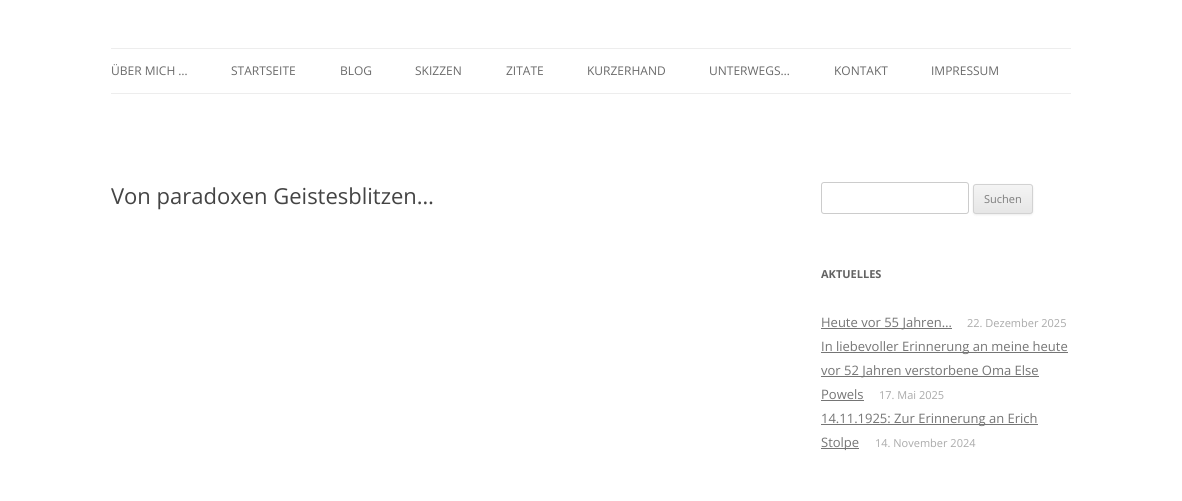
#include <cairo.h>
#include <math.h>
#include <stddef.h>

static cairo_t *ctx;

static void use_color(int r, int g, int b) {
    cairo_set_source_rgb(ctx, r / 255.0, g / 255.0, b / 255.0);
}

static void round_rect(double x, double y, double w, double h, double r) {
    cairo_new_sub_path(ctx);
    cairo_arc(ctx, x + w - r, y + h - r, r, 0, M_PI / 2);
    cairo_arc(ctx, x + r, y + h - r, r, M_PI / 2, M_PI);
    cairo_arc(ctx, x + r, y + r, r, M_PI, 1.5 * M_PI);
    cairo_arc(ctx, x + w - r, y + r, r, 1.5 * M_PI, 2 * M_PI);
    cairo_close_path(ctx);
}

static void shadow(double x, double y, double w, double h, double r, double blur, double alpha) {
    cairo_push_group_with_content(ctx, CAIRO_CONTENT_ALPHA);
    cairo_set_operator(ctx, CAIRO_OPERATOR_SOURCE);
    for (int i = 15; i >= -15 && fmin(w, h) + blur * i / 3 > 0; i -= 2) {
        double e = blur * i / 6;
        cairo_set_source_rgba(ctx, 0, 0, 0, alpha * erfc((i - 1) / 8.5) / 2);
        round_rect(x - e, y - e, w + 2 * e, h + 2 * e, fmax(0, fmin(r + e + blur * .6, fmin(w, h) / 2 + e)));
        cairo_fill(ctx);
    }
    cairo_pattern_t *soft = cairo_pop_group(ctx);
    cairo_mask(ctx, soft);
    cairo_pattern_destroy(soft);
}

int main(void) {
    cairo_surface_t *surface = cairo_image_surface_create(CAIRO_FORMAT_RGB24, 1182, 501);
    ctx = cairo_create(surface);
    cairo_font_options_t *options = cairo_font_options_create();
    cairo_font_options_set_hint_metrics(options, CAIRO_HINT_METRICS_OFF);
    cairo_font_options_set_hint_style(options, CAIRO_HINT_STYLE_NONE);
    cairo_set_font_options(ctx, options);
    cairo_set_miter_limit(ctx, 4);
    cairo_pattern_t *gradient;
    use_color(255, 255, 255);
    cairo_paint(ctx);
    use_color(237, 237, 237);
    cairo_rectangle(ctx, 111, 48, 960, 1);
    cairo_fill(ctx);
    cairo_rectangle(ctx, 111, 93, 960, 1);
    cairo_fill(ctx);
    cairo_select_font_face(ctx, "Open Sans", CAIRO_FONT_SLANT_NORMAL, CAIRO_FONT_WEIGHT_NORMAL);
    cairo_set_font_size(ctx, 12);
    use_color(106, 106, 106);
    cairo_move_to(ctx, 111, 75);
    cairo_show_text(ctx, "ÜBER MICH …");
    cairo_move_to(ctx, 231, 75);
    cairo_show_text(ctx, "STARTSEITE");
    cairo_move_to(ctx, 340, 75);
    cairo_show_text(ctx, "BLOG");
    cairo_move_to(ctx, 415, 75);
    cairo_show_text(ctx, "SKIZZEN");
    cairo_move_to(ctx, 506, 75);
    cairo_show_text(ctx, "ZITATE");
    cairo_move_to(ctx, 587, 75);
    cairo_show_text(ctx, "KURZERHAND");
    cairo_move_to(ctx, 709, 75);
    cairo_show_text(ctx, "UNTERWEGS…");
    cairo_move_to(ctx, 834, 75);
    cairo_show_text(ctx, "KONTAKT");
    cairo_move_to(ctx, 931, 75);
    cairo_show_text(ctx, "IMPRESSUM");
    cairo_set_font_size(ctx, 22);
    use_color(68, 68, 68);
    cairo_move_to(ctx, 111, 204);
    cairo_show_text(ctx, "Von paradoxen Geistesblitzen…");
    round_rect(821.5, 182.5, 147, 31, 2.5);
    use_color(204, 204, 204);
    cairo_set_line_width(ctx, 1);
    cairo_stroke(ctx);
    use_color(64, 64, 64);
    shadow(973, 185, 60, 30, 3, 1, 0.1);
    cairo_save(ctx);
    round_rect(973, 184, 60, 30, 3);
    cairo_clip(ctx);
    gradient = cairo_pattern_create_linear(1003, 185, 1003, 213);
    cairo_pattern_add_color_stop_rgba(gradient, 0, 0.957, 0.957, 0.957, 1);
    cairo_pattern_add_color_stop_rgba(gradient, 1, 0.902, 0.902, 0.902, 1);
    cairo_set_source(ctx, gradient);
    cairo_pattern_destroy(gradient);
    cairo_rectangle(ctx, 973, 185, 60, 28);
    cairo_fill(ctx);
    cairo_restore(ctx);
    round_rect(973.5, 184.5, 59, 29, 2.5);
    use_color(210, 210, 210);
    cairo_stroke(ctx);
    cairo_set_font_size(ctx, 11);
    use_color(124, 124, 124);
    cairo_move_to(ctx, 984, 203);
    cairo_show_text(ctx, "Suchen");
    cairo_select_font_face(ctx, "Open Sans", CAIRO_FONT_SLANT_NORMAL, CAIRO_FONT_WEIGHT_BOLD);
    use_color(99, 99, 99);
    cairo_move_to(ctx, 821, 278);
    cairo_show_text(ctx, "AKTUELLES");
    use_color(117, 117, 117);
    cairo_rectangle(ctx, 821, 328, 131, 1);
    cairo_fill(ctx);
    cairo_select_font_face(ctx, "Open Sans", CAIRO_FONT_SLANT_NORMAL, CAIRO_FONT_WEIGHT_NORMAL);
    cairo_set_font_size(ctx, 13);
    cairo_move_to(ctx, 821, 327);
    cairo_show_text(ctx, "Heute vor 55 Jahren…");
    cairo_set_font_size(ctx, 11);
    use_color(170, 170, 170);
    cairo_move_to(ctx, 967, 327);
    cairo_show_text(ctx, "22. Dezember 2025");
    use_color(117, 117, 117);
    cairo_rectangle(ctx, 821, 352, 247, 1);
    cairo_fill(ctx);
    cairo_set_font_size(ctx, 13);
    cairo_move_to(ctx, 821, 351);
    cairo_show_text(ctx, "In liebevoller Erinnerung an meine heute");
    cairo_rectangle(ctx, 821, 376, 218, 1);
    cairo_fill(ctx);
    cairo_move_to(ctx, 821, 375);
    cairo_show_text(ctx, "vor 52 Jahren verstorbene Oma Else");
    cairo_move_to(ctx, 821, 399);
    cairo_show_text(ctx, "Powels");
    cairo_rectangle(ctx, 821, 400, 43, 1);
    cairo_fill(ctx);
    cairo_set_font_size(ctx, 11);
    use_color(170, 170, 170);
    cairo_move_to(ctx, 879, 399);
    cairo_show_text(ctx, "17. Mai 2025");
    use_color(117, 117, 117);
    cairo_rectangle(ctx, 821, 424, 217, 1);
    cairo_fill(ctx);
    cairo_set_font_size(ctx, 13);
    cairo_move_to(ctx, 821, 423);
    cairo_show_text(ctx, "14.11.1925: Zur Erinnerung an Erich");
    cairo_rectangle(ctx, 821, 448, 38, 1);
    cairo_fill(ctx);
    cairo_move_to(ctx, 821, 447);
    cairo_show_text(ctx, "Stolpe");
    cairo_set_font_size(ctx, 11);
    use_color(170, 170, 170);
    cairo_move_to(ctx, 875, 447);
    cairo_show_text(ctx, "14. November 2024");
    cairo_surface_write_to_png(surface, "result.png");
    cairo_font_options_destroy(options);
    cairo_destroy(ctx);
    cairo_surface_destroy(surface);
    return 0;
}
